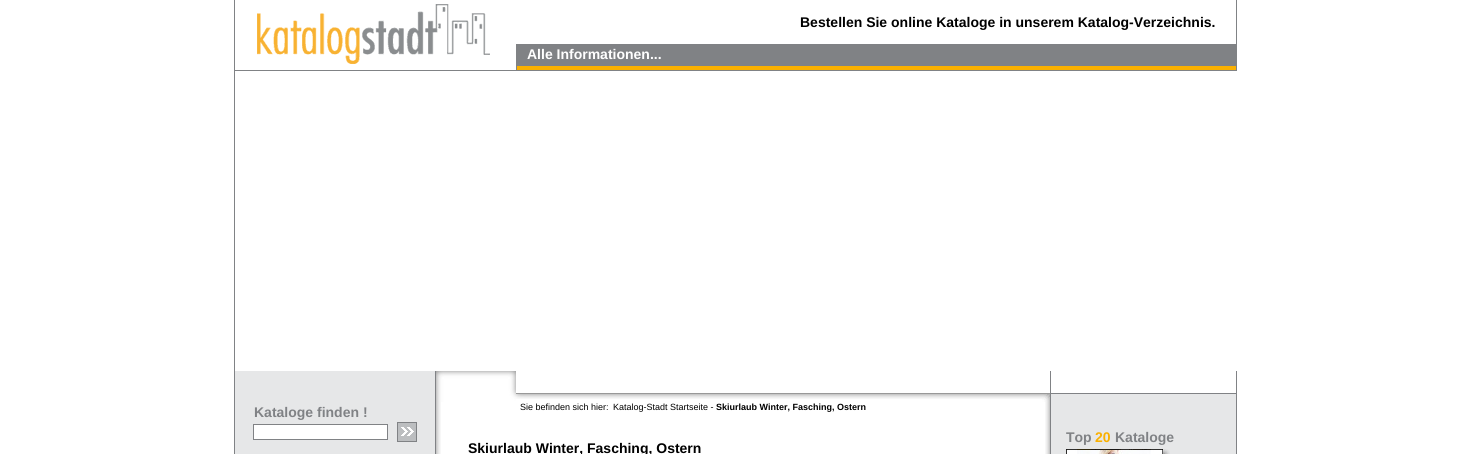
#include <cairo.h>
#include <math.h>
#include <stddef.h>

static cairo_t *ctx;

static void use_color(int r, int g, int b) {
    cairo_set_source_rgb(ctx, r / 255.0, g / 255.0, b / 255.0);
}

static void picture(const char *path, double x, double y, double w, double h) {
    cairo_surface_t *image = cairo_image_surface_create_from_png(path);
    cairo_save(ctx);
    cairo_set_source_surface(ctx, image, x, y);
    cairo_rectangle(ctx, x, y, w, h);
    cairo_fill(ctx);
    cairo_restore(ctx);
    cairo_surface_destroy(image);
}

int main(void) {
    cairo_surface_t *surface = cairo_image_surface_create(CAIRO_FORMAT_RGB24, 1470, 454);
    ctx = cairo_create(surface);
    cairo_font_options_t *options = cairo_font_options_create();
    cairo_font_options_set_hint_metrics(options, CAIRO_HINT_METRICS_OFF);
    cairo_font_options_set_hint_style(options, CAIRO_HINT_STYLE_NONE);
    cairo_set_font_options(ctx, options);
    cairo_set_miter_limit(ctx, 4);
    use_color(255, 255, 255);
    cairo_paint(ctx);
    use_color(128, 130, 133);
    cairo_rectangle(ctx, 234, 0, 1, 454);
    cairo_fill(ctx);
    picture("img1.png", 257, 4, 233, 60);
    cairo_select_font_face(ctx, "Liberation Sans", CAIRO_FONT_SLANT_NORMAL, CAIRO_FONT_WEIGHT_BOLD);
    cairo_set_font_size(ctx, 14);
    use_color(0, 0, 0);
    cairo_move_to(ctx, 800, 27);
    cairo_show_text(ctx, "Bestellen Sie online Kataloge in unserem Katalog-Verzeichnis.");
    use_color(128, 130, 133);
    cairo_rectangle(ctx, 1236, 0, 1, 70);
    cairo_fill(ctx);
    cairo_rectangle(ctx, 516, 44, 1, 26);
    cairo_fill(ctx);
    cairo_rectangle(ctx, 517, 44, 719, 22);
    cairo_fill(ctx);
    use_color(255, 255, 255);
    cairo_move_to(ctx, 527, 59);
    cairo_show_text(ctx, "Alle Informationen...");
    use_color(250, 176, 0);
    cairo_rectangle(ctx, 517, 66, 719, 4);
    cairo_fill(ctx);
    use_color(128, 130, 133);
    cairo_rectangle(ctx, 235, 70, 1002, 1);
    cairo_fill(ctx);
    use_color(230, 231, 232);
    cairo_rectangle(ctx, 235, 371, 200, 83);
    cairo_fill(ctx);
    use_color(128, 130, 133);
    cairo_rectangle(ctx, 435, 371, 1, 83);
    cairo_fill(ctx);
    picture("img2.png", 436, 371, 80, 31);
    use_color(153, 153, 153);
    cairo_rectangle(ctx, 516, 393, 534, 1);
    cairo_fill(ctx);
    picture("img3.png", 516, 394, 8, 5);
    picture("img4.png", 524, 394, 518, 5);
    picture("img5.png", 1042, 394, 8, 8);
    use_color(128, 130, 133);
    cairo_rectangle(ctx, 1050, 371, 1, 83);
    cairo_fill(ctx);
    use_color(230, 231, 232);
    cairo_rectangle(ctx, 1051, 394, 185, 60);
    cairo_fill(ctx);
    use_color(128, 130, 133);
    cairo_rectangle(ctx, 1051, 393, 185, 1);
    cairo_fill(ctx);
    cairo_rectangle(ctx, 1236, 371, 1, 83);
    cairo_fill(ctx);
    cairo_move_to(ctx, 254, 417);
    cairo_show_text(ctx, "Kataloge finden !");
    use_color(255, 255, 255);
    cairo_rectangle(ctx, 253.5, 424.5, 134, 15);
    cairo_fill_preserve(ctx);
    use_color(128, 130, 133);
    cairo_set_line_width(ctx, 1);
    cairo_stroke(ctx);
    picture("img6.png", 397, 422, 20, 20);
    picture("img7.png", 436, 402, 5, 52);
    cairo_select_font_face(ctx, "Liberation Sans", CAIRO_FONT_SLANT_NORMAL, CAIRO_FONT_WEIGHT_NORMAL);
    cairo_set_font_size(ctx, 9);
    use_color(0, 0, 0);
    cairo_move_to(ctx, 520, 410);
    cairo_show_text(ctx, "Sie befinden sich hier:");
    cairo_move_to(ctx, 613, 410);
    cairo_show_text(ctx, "Katalog-Stadt Startseite -");
    cairo_select_font_face(ctx, "Liberation Sans", CAIRO_FONT_SLANT_NORMAL, CAIRO_FONT_WEIGHT_BOLD);
    cairo_move_to(ctx, 716, 410);
    cairo_show_text(ctx, "Skiurlaub Winter, Fasching, Ostern");
    cairo_set_font_size(ctx, 14);
    cairo_move_to(ctx, 468, 453);
    cairo_show_text(ctx, "Skiurlaub Winter, Fasching, Ostern");
    picture("img8.png", 1045, 402, 5, 52);
    use_color(128, 130, 133);
    cairo_move_to(ctx, 1066, 442);
    cairo_show_text(ctx, "Top");
    use_color(250, 176, 0);
    cairo_move_to(ctx, 1095, 442);
    cairo_show_text(ctx, "20");
    use_color(128, 130, 133);
    cairo_move_to(ctx, 1115, 442);
    cairo_show_text(ctx, "Kataloge");
    picture("img9.png", 1066, 449, 104, 5);
    picture("img10.png", 1067, 450, 95, 4);
    cairo_surface_write_to_png(surface, "result.png");
    cairo_font_options_destroy(options);
    cairo_destroy(ctx);
    cairo_surface_destroy(surface);
    return 0;
}
